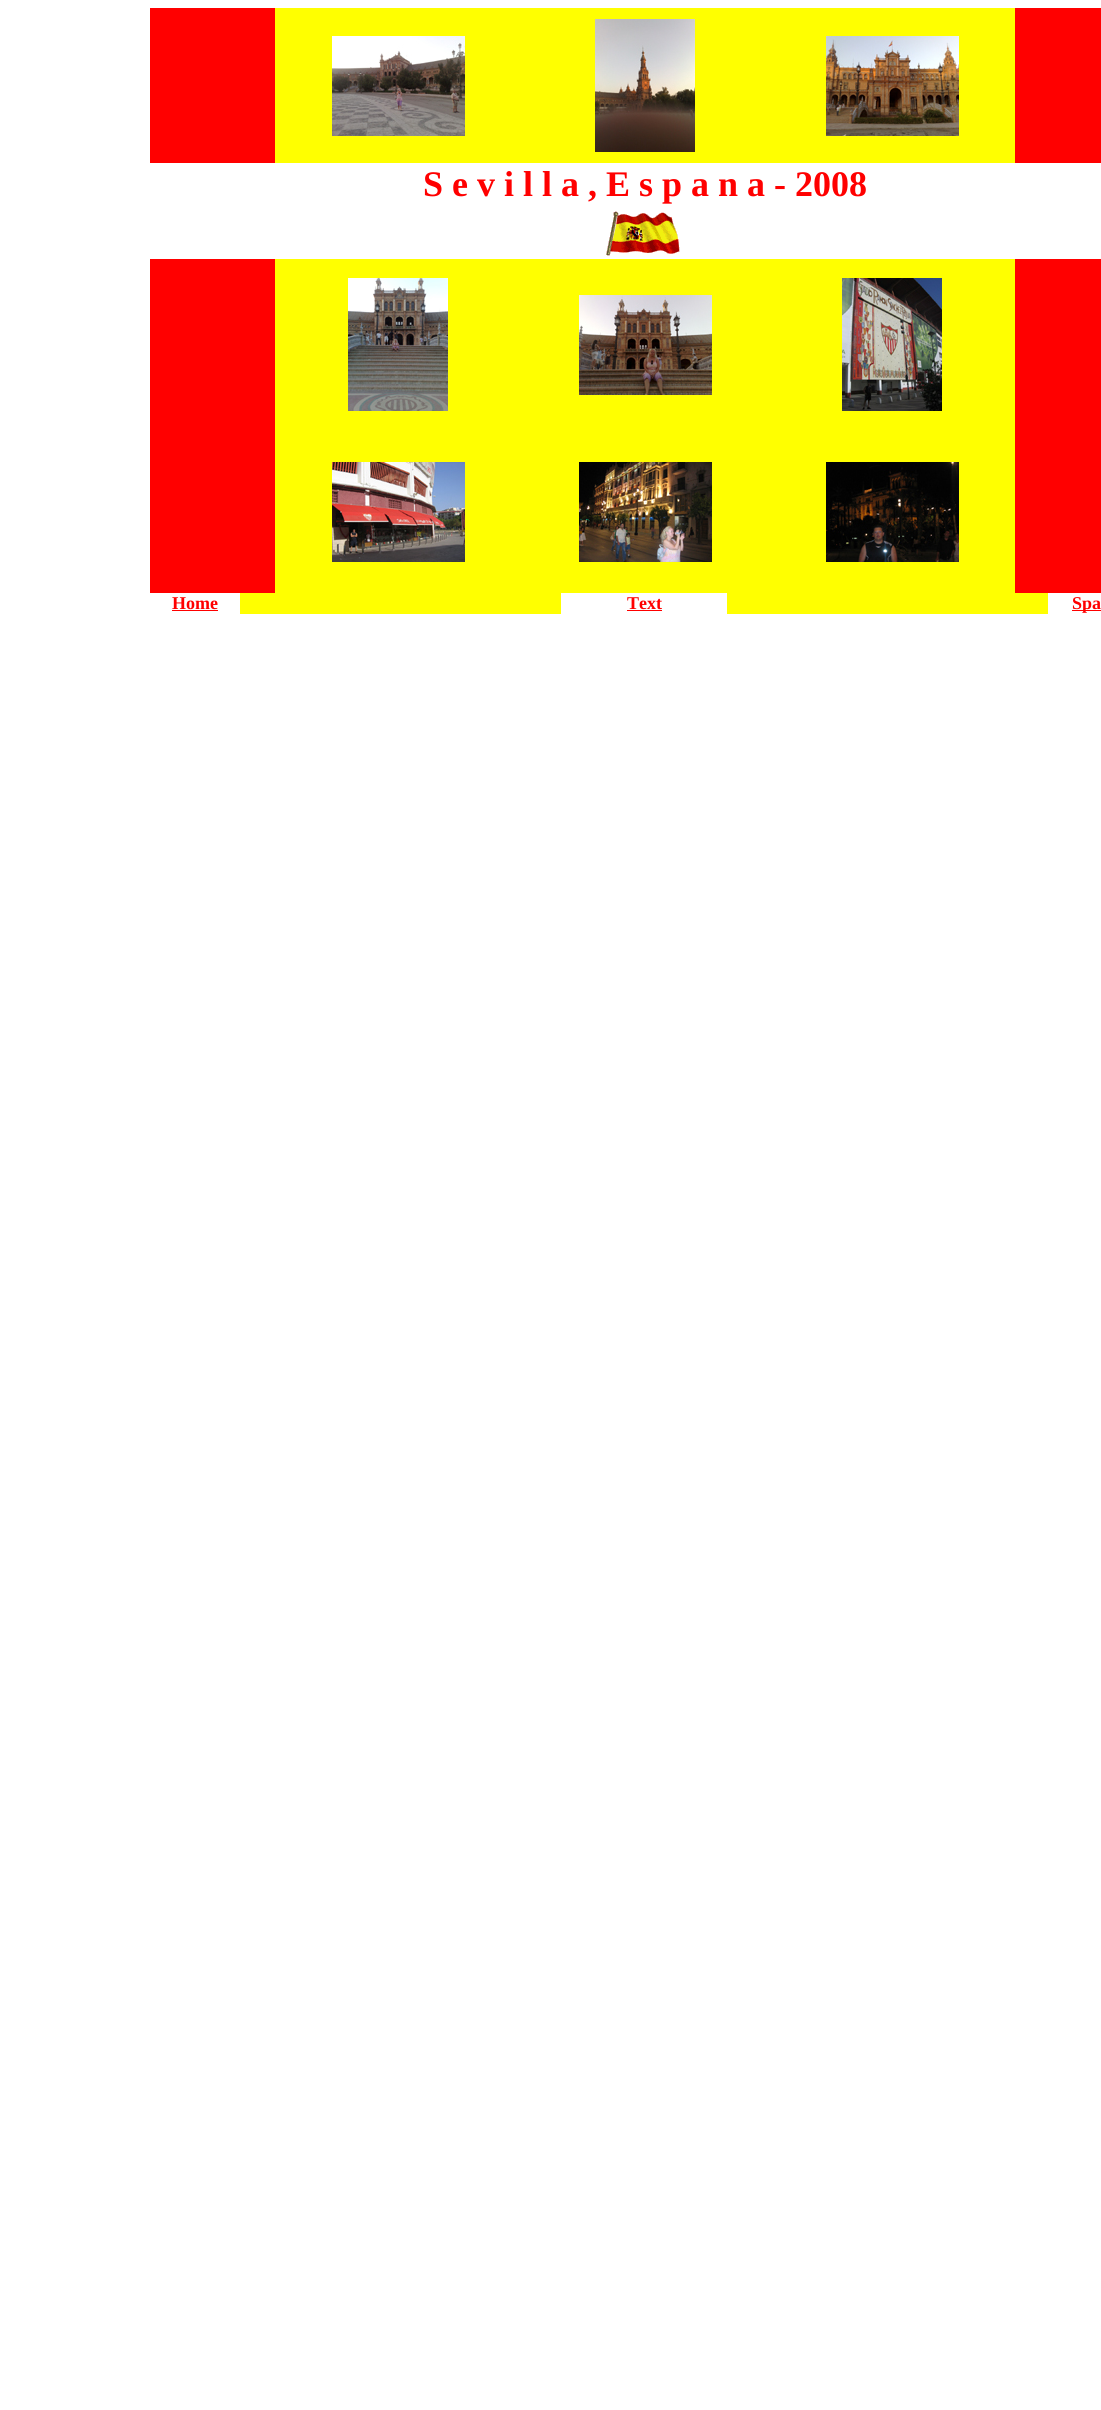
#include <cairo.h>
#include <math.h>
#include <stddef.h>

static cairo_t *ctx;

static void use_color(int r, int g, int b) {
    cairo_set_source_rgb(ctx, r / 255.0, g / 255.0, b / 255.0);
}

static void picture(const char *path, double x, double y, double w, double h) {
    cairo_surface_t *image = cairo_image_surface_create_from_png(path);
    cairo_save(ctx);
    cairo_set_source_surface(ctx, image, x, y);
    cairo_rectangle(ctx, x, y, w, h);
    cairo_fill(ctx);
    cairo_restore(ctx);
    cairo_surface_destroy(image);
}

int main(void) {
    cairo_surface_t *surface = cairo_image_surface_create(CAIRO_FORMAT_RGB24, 1101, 2410);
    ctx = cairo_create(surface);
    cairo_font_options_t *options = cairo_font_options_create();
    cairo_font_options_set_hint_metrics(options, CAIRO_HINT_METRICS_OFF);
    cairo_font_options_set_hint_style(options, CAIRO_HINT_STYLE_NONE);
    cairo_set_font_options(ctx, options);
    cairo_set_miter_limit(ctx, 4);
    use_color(255, 255, 255);
    cairo_paint(ctx);
    use_color(255, 0, 0);
    cairo_rectangle(ctx, 150, 8, 125, 155);
    cairo_fill(ctx);
    use_color(255, 255, 0);
    cairo_rectangle(ctx, 275, 8, 740, 155);
    cairo_fill(ctx);
    picture("img1.png", 332, 36, 133, 100);
    use_color(255, 0, 0);
    cairo_rectangle(ctx, 1015, 8, 86, 155);
    cairo_fill(ctx);
    picture("img2.png", 595, 19, 100, 133);
    picture("img3.png", 826, 36, 133, 100);
    cairo_select_font_face(ctx, "Liberation Serif", CAIRO_FONT_SLANT_NORMAL, CAIRO_FONT_WEIGHT_BOLD);
    cairo_set_font_size(ctx, 36);
    cairo_move_to(ctx, 423, 196);
    cairo_show_text(ctx, "S e v i l l a , E s p a n a - 2008");
    picture("img4.png", 606, 211, 74, 45);
    cairo_rectangle(ctx, 150, 259, 125, 334);
    cairo_fill(ctx);
    use_color(255, 255, 0);
    cairo_rectangle(ctx, 275, 259, 740, 171);
    cairo_fill(ctx);
    picture("img5.png", 348, 278, 100, 133);
    use_color(255, 0, 0);
    cairo_rectangle(ctx, 1015, 259, 86, 334);
    cairo_fill(ctx);
    picture("img6.png", 579, 295, 133, 100);
    picture("img7.png", 842, 278, 100, 133);
    use_color(255, 255, 0);
    cairo_rectangle(ctx, 275, 430, 740, 163);
    cairo_fill(ctx);
    picture("img8.png", 332, 462, 133, 100);
    picture("img9.png", 579, 462, 133, 100);
    picture("img10.png", 826, 462, 133, 100);
    cairo_set_font_size(ctx, 18);
    use_color(255, 0, 0);
    cairo_move_to(ctx, 172, 609);
    cairo_show_text(ctx, "Home");
    cairo_rectangle(ctx, 172, 610, 46, 1);
    cairo_fill(ctx);
    use_color(255, 255, 0);
    cairo_rectangle(ctx, 240, 593, 321, 21);
    cairo_fill(ctx);
    use_color(255, 0, 0);
    cairo_move_to(ctx, 627, 609);
    cairo_show_text(ctx, "Text");
    cairo_rectangle(ctx, 627, 610, 35, 1);
    cairo_fill(ctx);
    use_color(255, 255, 0);
    cairo_rectangle(ctx, 727, 593, 321, 21);
    cairo_fill(ctx);
    use_color(255, 0, 0);
    cairo_rectangle(ctx, 1072, 610, 29, 1);
    cairo_fill(ctx);
    cairo_move_to(ctx, 1072, 609);
    cairo_show_text(ctx, "Spa");
    cairo_surface_write_to_png(surface, "result.png");
    cairo_font_options_destroy(options);
    cairo_destroy(ctx);
    cairo_surface_destroy(surface);
    return 0;
}
